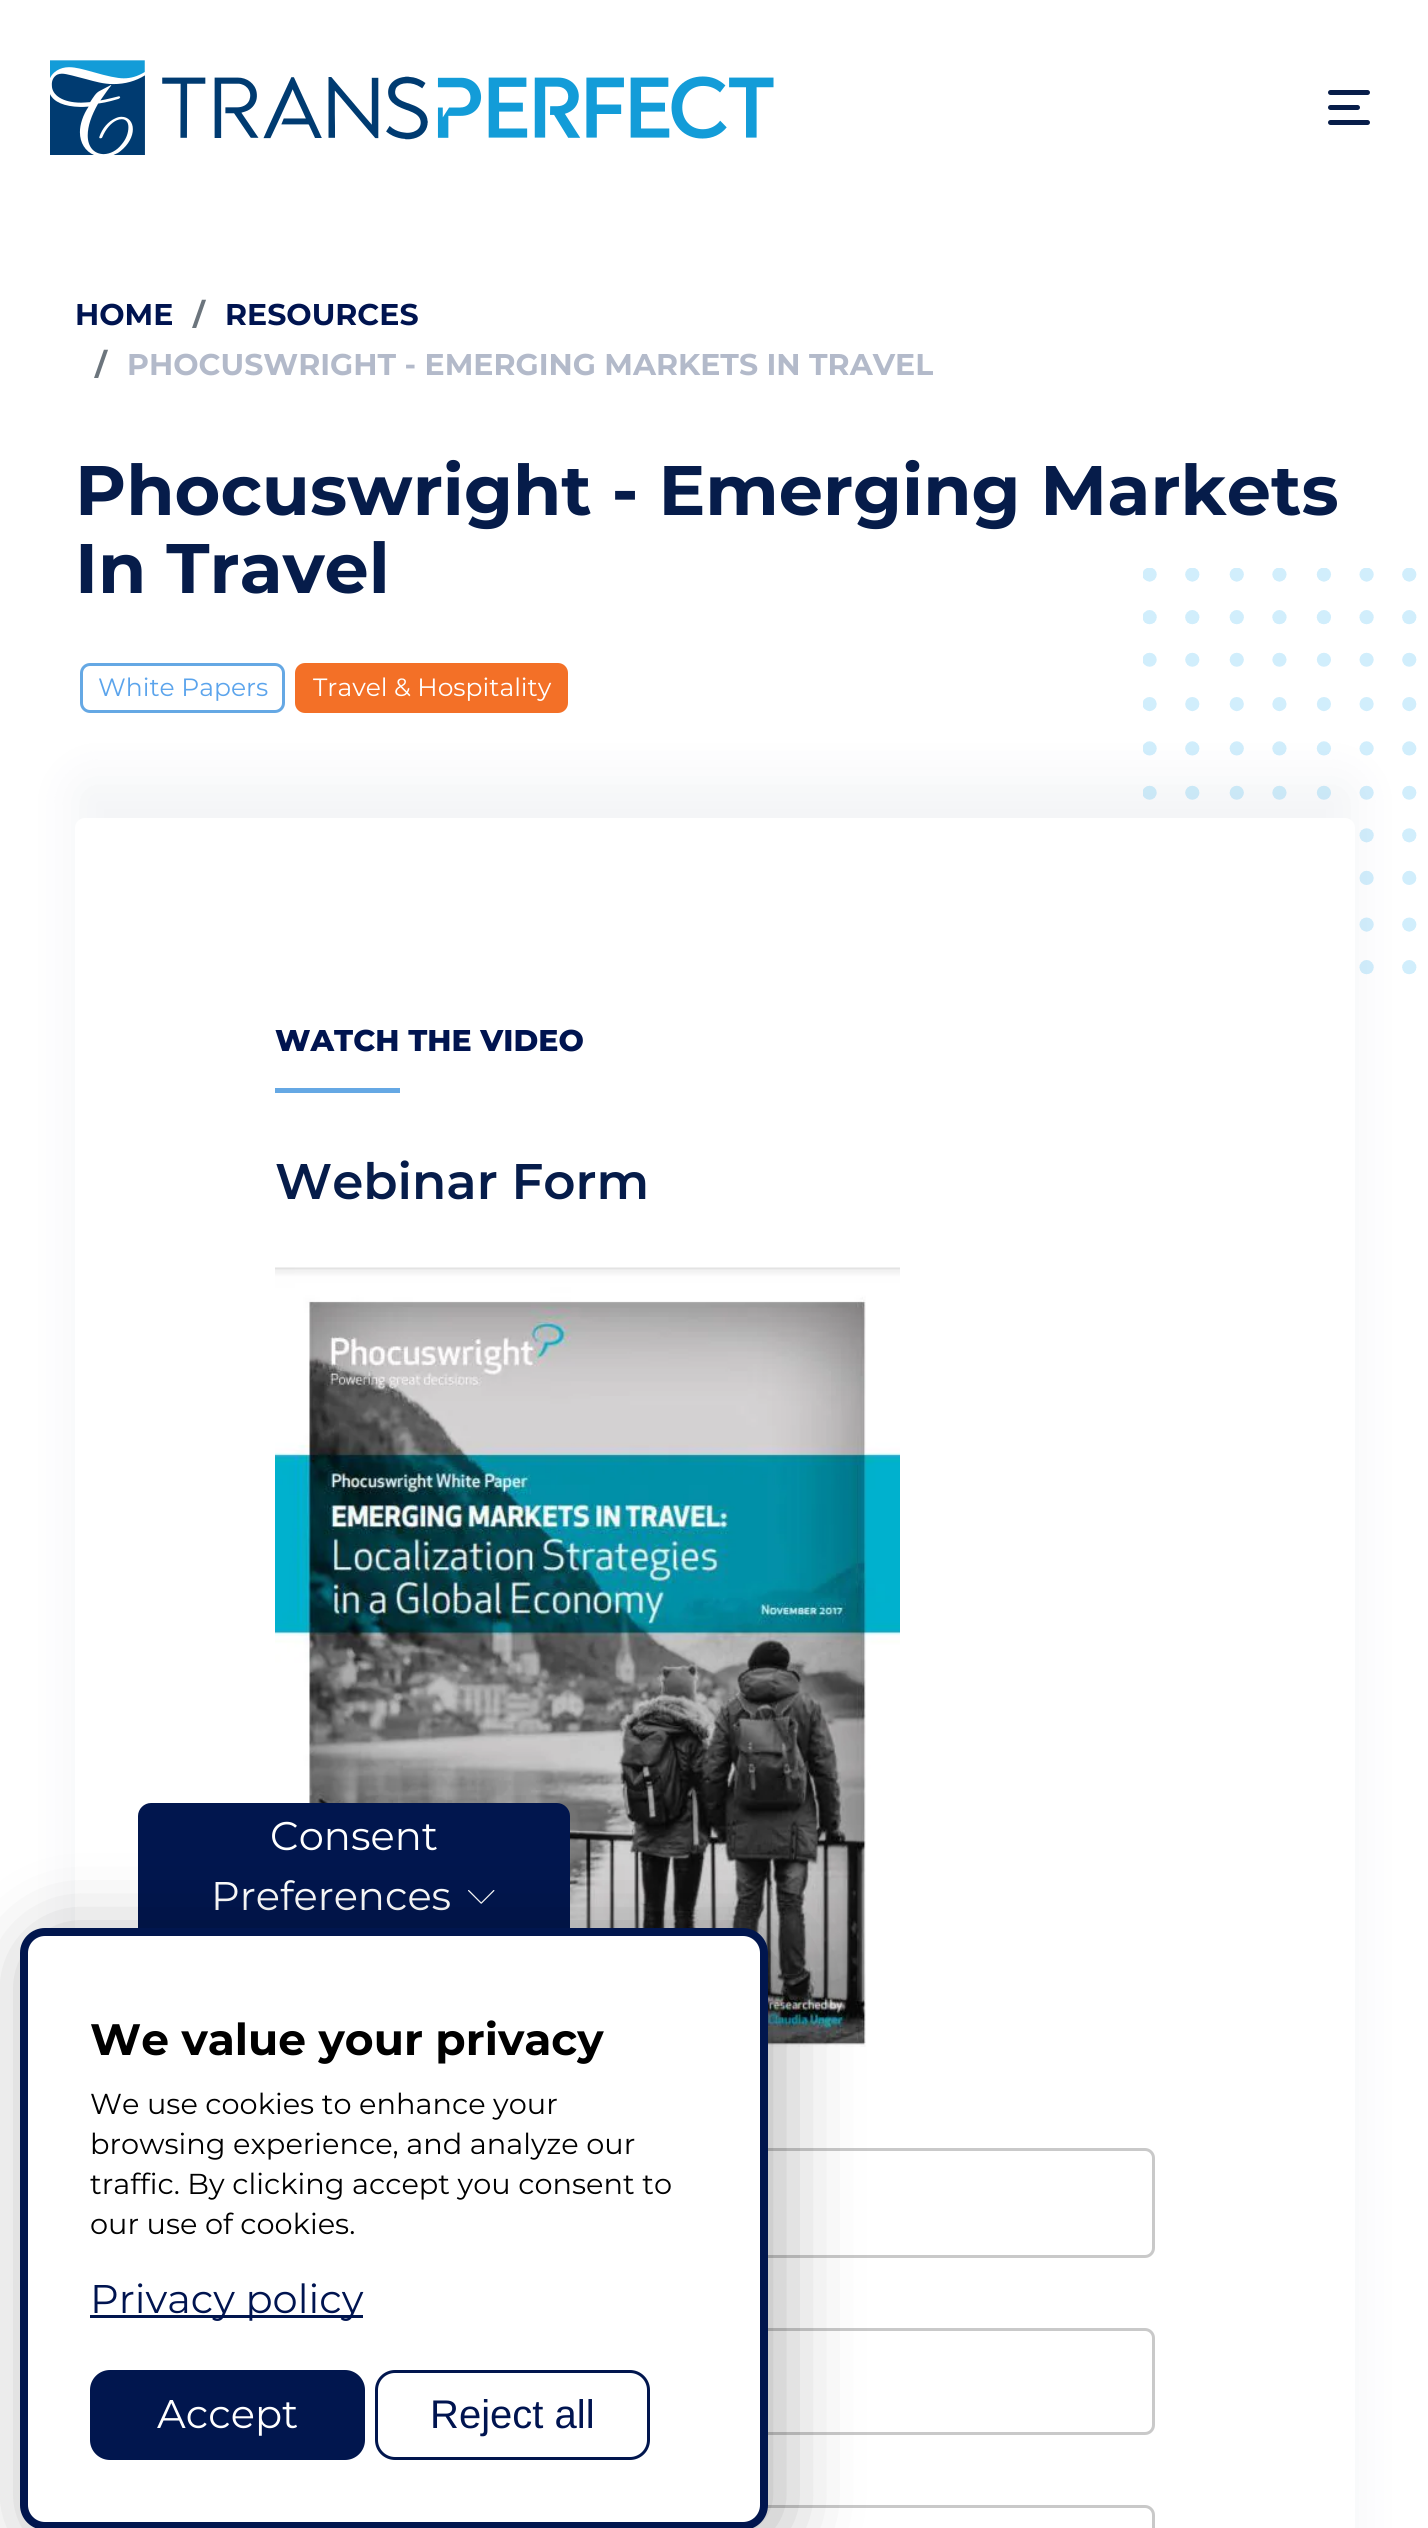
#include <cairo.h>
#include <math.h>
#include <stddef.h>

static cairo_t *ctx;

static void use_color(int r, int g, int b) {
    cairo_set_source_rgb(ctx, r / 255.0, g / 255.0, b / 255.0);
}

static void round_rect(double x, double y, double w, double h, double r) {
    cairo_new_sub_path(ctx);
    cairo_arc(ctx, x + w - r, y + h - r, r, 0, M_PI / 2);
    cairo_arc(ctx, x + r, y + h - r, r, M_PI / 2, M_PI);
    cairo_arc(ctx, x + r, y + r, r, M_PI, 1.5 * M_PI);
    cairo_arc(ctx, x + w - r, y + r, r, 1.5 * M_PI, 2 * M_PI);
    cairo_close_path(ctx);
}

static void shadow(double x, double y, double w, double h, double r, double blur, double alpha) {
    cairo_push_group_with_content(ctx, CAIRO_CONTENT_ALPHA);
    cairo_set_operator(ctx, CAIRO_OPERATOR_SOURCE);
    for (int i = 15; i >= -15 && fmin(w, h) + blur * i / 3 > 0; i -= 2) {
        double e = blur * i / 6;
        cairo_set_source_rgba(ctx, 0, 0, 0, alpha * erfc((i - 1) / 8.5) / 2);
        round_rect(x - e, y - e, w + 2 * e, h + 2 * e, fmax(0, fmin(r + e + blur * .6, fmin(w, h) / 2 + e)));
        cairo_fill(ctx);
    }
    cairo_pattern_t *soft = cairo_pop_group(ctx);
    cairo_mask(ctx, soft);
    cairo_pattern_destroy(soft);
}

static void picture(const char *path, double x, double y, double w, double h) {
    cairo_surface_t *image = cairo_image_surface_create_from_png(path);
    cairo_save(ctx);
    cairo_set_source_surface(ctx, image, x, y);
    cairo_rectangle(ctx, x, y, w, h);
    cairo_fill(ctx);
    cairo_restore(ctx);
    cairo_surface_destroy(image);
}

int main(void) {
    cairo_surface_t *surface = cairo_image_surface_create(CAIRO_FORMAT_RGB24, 1428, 2528);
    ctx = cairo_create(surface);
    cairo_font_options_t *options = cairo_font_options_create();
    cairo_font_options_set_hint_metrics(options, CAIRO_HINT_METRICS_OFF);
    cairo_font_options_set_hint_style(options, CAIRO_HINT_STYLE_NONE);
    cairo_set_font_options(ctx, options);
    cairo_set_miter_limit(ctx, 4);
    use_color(255, 255, 255);
    cairo_paint(ctx);
    picture("img1.png", 50, 60, 724, 95);
    use_color(7, 29, 73);
    round_rect(1328, 90, 42, 5, 2.5);
    cairo_fill(ctx);
    round_rect(1328, 105, 32, 5, 2.5);
    cairo_fill(ctx);
    round_rect(1328, 120, 42, 5, 2.5);
    cairo_fill(ctx);
    cairo_select_font_face(ctx, "Montserrat", CAIRO_FONT_SLANT_NORMAL, CAIRO_FONT_WEIGHT_BOLD);
    cairo_set_font_size(ctx, 30);
    use_color(0, 20, 80);
    cairo_move_to(ctx, 75, 325);
    cairo_show_text(ctx, "HOME");
    use_color(108, 117, 125);
    cairo_move_to(ctx, 193, 325);
    cairo_show_text(ctx, "/");
    use_color(0, 20, 80);
    cairo_move_to(ctx, 225, 325);
    cairo_show_text(ctx, "RESOURCES");
    use_color(108, 117, 125);
    cairo_move_to(ctx, 95, 375);
    cairo_show_text(ctx, "/");
    use_color(179, 186, 202);
    cairo_move_to(ctx, 127, 375);
    cairo_show_text(ctx, "PHOCUSWRIGHT - EMERGING MARKETS IN TRAVEL");
    cairo_set_font_size(ctx, 70);
    use_color(6, 28, 74);
    cairo_move_to(ctx, 75, 515);
    cairo_show_text(ctx, "Phocuswright - Emerging Markets");
    cairo_move_to(ctx, 75, 593);
    cairo_show_text(ctx, "In Travel");
    round_rect(81.5, 664.5, 202, 47, 8.5);
    use_color(101, 168, 228);
    cairo_set_line_width(ctx, 3);
    cairo_stroke(ctx);
    cairo_select_font_face(ctx, "Montserrat", CAIRO_FONT_SLANT_NORMAL, CAIRO_FONT_WEIGHT_NORMAL);
    cairo_set_font_size(ctx, 25);
    use_color(91, 164, 236);
    cairo_move_to(ctx, 98, 696);
    cairo_show_text(ctx, "White Papers");
    use_color(243, 112, 39);
    round_rect(296.5, 664.5, 270, 47, 8.5);
    cairo_fill_preserve(ctx);
    cairo_stroke(ctx);
    use_color(255, 255, 255);
    cairo_move_to(ctx, 313, 696);
    cairo_show_text(ctx, "Travel & Hospitality");
    picture("img2.png", 1143, 568, 274, 407);
    use_color(7, 29, 73);
    shadow(75, 780, 1280, 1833, 10, 25, 0.05);
    use_color(255, 255, 255);
    round_rect(75, 818, 1280, 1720, 10);
    cairo_fill(ctx);
    cairo_select_font_face(ctx, "Montserrat ExtraBold", CAIRO_FONT_SLANT_NORMAL, CAIRO_FONT_WEIGHT_NORMAL);
    cairo_set_font_size(ctx, 30);
    use_color(0, 20, 80);
    cairo_move_to(ctx, 275, 1051);
    cairo_show_text(ctx, "WATCH THE VIDEO");
    use_color(101, 168, 228);
    cairo_rectangle(ctx, 275, 1088, 125, 5);
    cairo_fill(ctx);
    cairo_select_font_face(ctx, "Montserrat SemiBold", CAIRO_FONT_SLANT_NORMAL, CAIRO_FONT_WEIGHT_NORMAL);
    cairo_set_font_size(ctx, 50);
    use_color(6, 28, 74);
    cairo_move_to(ctx, 275, 1199);
    cairo_show_text(ctx, "Webinar Form");
    picture("img3.png", 275, 1267, 625, 780);
    round_rect(276.5, 2149.5, 877, 107, 8.5);
    use_color(201, 201, 201);
    cairo_stroke(ctx);
    round_rect(276.5, 2329.5, 877, 104, 8.5);
    cairo_stroke(ctx);
    round_rect(276.5, 2506.5, 877, 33, 8.5);
    cairo_stroke(ctx);
    use_color(1, 22, 78);
    cairo_new_path(ctx);
    cairo_move_to(ctx, 151, 1803);
    cairo_line_to(ctx, 557, 1803);
    cairo_curve_to(ctx, 564, 1803, 570, 1809, 570, 1816);
    cairo_line_to(ctx, 570, 1933);
    cairo_line_to(ctx, 138, 1933);
    cairo_line_to(ctx, 138, 1816);
    cairo_curve_to(ctx, 138, 1809, 144, 1803, 151, 1803);
    cairo_close_path(ctx);
    cairo_fill(ctx);
    cairo_select_font_face(ctx, "Montserrat", CAIRO_FONT_SLANT_NORMAL, CAIRO_FONT_WEIGHT_NORMAL);
    cairo_set_font_size(ctx, 40);
    use_color(255, 255, 255);
    cairo_move_to(ctx, 270, 1850);
    cairo_show_text(ctx, "Consent");
    cairo_move_to(ctx, 211, 1910);
    cairo_show_text(ctx, "Preferences");
    picture("img4.png", 468, 1890, 27, 14);
    use_color(0, 0, 0);
    shadow(33, 1940, 747, 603, 25, 40, 0.3);
    use_color(255, 255, 255);
    round_rect(24, 1932, 740, 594, 21);
    cairo_fill_preserve(ctx);
    use_color(1, 22, 78);
    cairo_set_line_width(ctx, 8);
    cairo_stroke(ctx);
    cairo_select_font_face(ctx, "Montserrat", CAIRO_FONT_SLANT_NORMAL, CAIRO_FONT_WEIGHT_BOLD);
    cairo_set_font_size(ctx, 44);
    use_color(0, 0, 0);
    cairo_move_to(ctx, 90, 2055);
    cairo_show_text(ctx, "We value your privacy");
    cairo_select_font_face(ctx, "Montserrat", CAIRO_FONT_SLANT_NORMAL, CAIRO_FONT_WEIGHT_NORMAL);
    cairo_set_font_size(ctx, 28.8);
    cairo_move_to(ctx, 90, 2114);
    cairo_show_text(ctx, "We use cookies to enhance your");
    cairo_move_to(ctx, 90, 2154);
    cairo_show_text(ctx, "browsing experience, and analyze our");
    cairo_move_to(ctx, 90, 2194);
    cairo_show_text(ctx, "traffic. By clicking accept you consent to");
    cairo_move_to(ctx, 90, 2234);
    cairo_show_text(ctx, "our use of cookies.");
    use_color(1, 22, 78);
    cairo_rectangle(ctx, 90, 2315, 273, 3);
    cairo_fill(ctx);
    cairo_set_font_size(ctx, 40);
    use_color(0, 20, 80);
    cairo_move_to(ctx, 90, 2313);
    cairo_show_text(ctx, "Privacy policy");
    use_color(1, 22, 78);
    round_rect(91.5, 2371.5, 272, 87, 18.5);
    cairo_fill_preserve(ctx);
    cairo_set_line_width(ctx, 3);
    cairo_stroke(ctx);
    use_color(255, 255, 255);
    cairo_move_to(ctx, 157, 2428);
    cairo_show_text(ctx, "Accept");
    round_rect(376.5, 2371.5, 272, 87, 18.5);
    use_color(1, 22, 78);
    cairo_stroke(ctx);
    cairo_select_font_face(ctx, "Liberation Sans", CAIRO_FONT_SLANT_NORMAL, CAIRO_FONT_WEIGHT_NORMAL);
    use_color(0, 20, 80);
    cairo_move_to(ctx, 430, 2428);
    cairo_show_text(ctx, "Reject all");
    cairo_surface_write_to_png(surface, "result.png");
    cairo_font_options_destroy(options);
    cairo_destroy(ctx);
    cairo_surface_destroy(surface);
    return 0;
}
